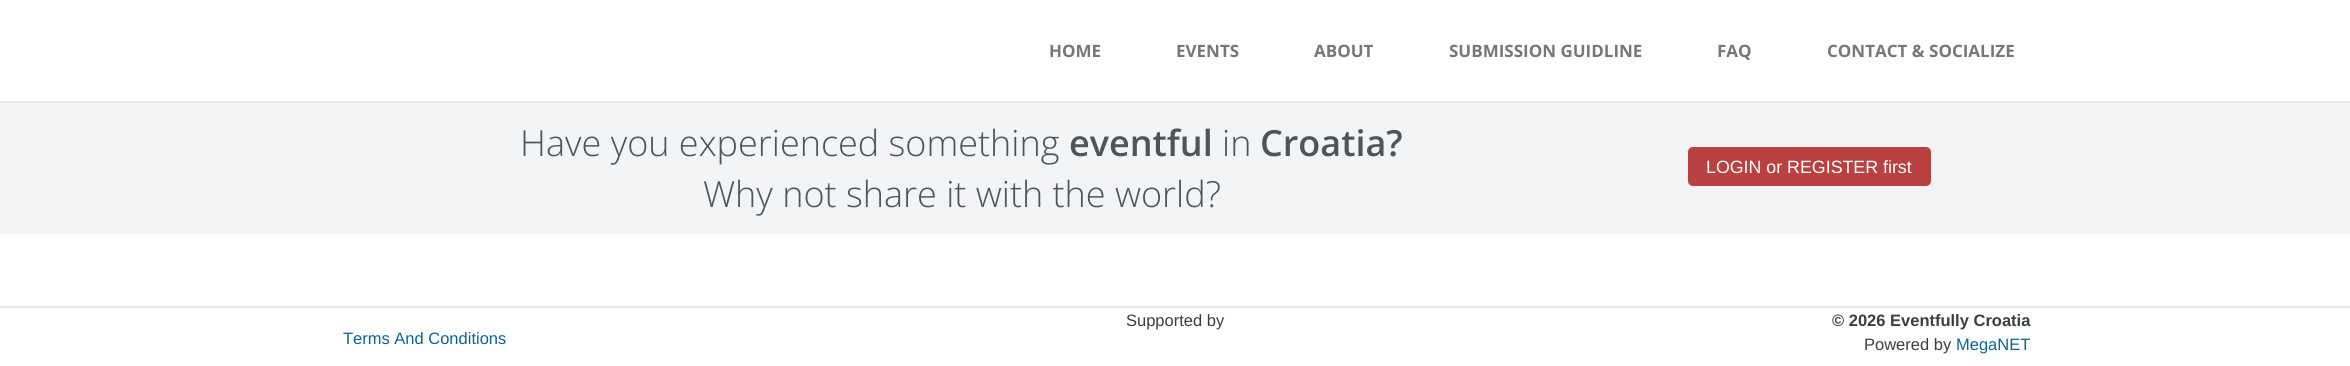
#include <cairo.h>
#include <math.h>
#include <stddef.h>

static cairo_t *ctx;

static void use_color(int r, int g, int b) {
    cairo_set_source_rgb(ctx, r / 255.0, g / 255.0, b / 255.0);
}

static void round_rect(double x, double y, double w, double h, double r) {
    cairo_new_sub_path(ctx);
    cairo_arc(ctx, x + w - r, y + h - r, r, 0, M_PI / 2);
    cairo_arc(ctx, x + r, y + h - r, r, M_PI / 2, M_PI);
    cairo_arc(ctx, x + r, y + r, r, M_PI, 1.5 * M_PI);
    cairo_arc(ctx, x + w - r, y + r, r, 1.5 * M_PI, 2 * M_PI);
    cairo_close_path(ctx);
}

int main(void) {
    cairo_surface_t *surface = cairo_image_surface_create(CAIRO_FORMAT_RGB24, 2350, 366);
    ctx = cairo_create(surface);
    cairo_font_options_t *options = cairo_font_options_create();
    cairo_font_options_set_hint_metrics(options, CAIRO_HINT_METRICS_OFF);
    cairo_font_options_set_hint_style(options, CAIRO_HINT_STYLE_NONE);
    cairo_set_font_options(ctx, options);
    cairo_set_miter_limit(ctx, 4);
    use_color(242, 244, 246);
    cairo_paint(ctx);
    use_color(255, 255, 255);
    cairo_rectangle(ctx, 0, 0, 2350, 101);
    cairo_fill(ctx);
    use_color(229, 233, 236);
    cairo_rectangle(ctx, 0, 101, 2350, 2);
    cairo_fill(ctx);
    cairo_select_font_face(ctx, "Open Sans", CAIRO_FONT_SLANT_NORMAL, CAIRO_FONT_WEIGHT_BOLD);
    cairo_set_font_size(ctx, 17);
    use_color(119, 119, 119);
    cairo_move_to(ctx, 1049, 57);
    cairo_show_text(ctx, "HOME");
    cairo_move_to(ctx, 1176, 57);
    cairo_show_text(ctx, "EVENTS");
    cairo_move_to(ctx, 1314, 57);
    cairo_show_text(ctx, "ABOUT");
    cairo_move_to(ctx, 1449, 57);
    cairo_show_text(ctx, "SUBMISSION GUIDLINE");
    cairo_move_to(ctx, 1717, 57);
    cairo_show_text(ctx, "FAQ");
    cairo_move_to(ctx, 1827, 57);
    cairo_show_text(ctx, "CONTACT & SOCIALIZE");
    cairo_select_font_face(ctx, "Open Sans Light", CAIRO_FONT_SLANT_NORMAL, CAIRO_FONT_WEIGHT_NORMAL);
    cairo_set_font_size(ctx, 36);
    use_color(80, 84, 88);
    cairo_move_to(ctx, 520, 156);
    cairo_show_text(ctx, "Have you experienced something");
    cairo_select_font_face(ctx, "Open Sans SemiBold", CAIRO_FONT_SLANT_NORMAL, CAIRO_FONT_WEIGHT_NORMAL);
    cairo_move_to(ctx, 1069, 156);
    cairo_show_text(ctx, "eventful");
    cairo_select_font_face(ctx, "Open Sans Light", CAIRO_FONT_SLANT_NORMAL, CAIRO_FONT_WEIGHT_NORMAL);
    cairo_move_to(ctx, 1222, 156);
    cairo_show_text(ctx, "in");
    cairo_select_font_face(ctx, "Open Sans SemiBold", CAIRO_FONT_SLANT_NORMAL, CAIRO_FONT_WEIGHT_NORMAL);
    cairo_move_to(ctx, 1260, 156);
    cairo_show_text(ctx, "Croatia?");
    cairo_select_font_face(ctx, "Open Sans Light", CAIRO_FONT_SLANT_NORMAL, CAIRO_FONT_WEIGHT_NORMAL);
    cairo_move_to(ctx, 703, 207);
    cairo_show_text(ctx, "Why not share it with the world?");
    use_color(185, 65, 65);
    round_rect(1688, 147, 243, 39, 5);
    cairo_fill(ctx);
    cairo_select_font_face(ctx, "Liberation Sans", CAIRO_FONT_SLANT_NORMAL, CAIRO_FONT_WEIGHT_NORMAL);
    cairo_set_font_size(ctx, 17.8);
    use_color(255, 255, 255);
    cairo_move_to(ctx, 1706, 173);
    cairo_show_text(ctx, "LOGIN or REGISTER first");
    cairo_rectangle(ctx, 0, 234, 2350, 72);
    cairo_fill(ctx);
    cairo_rectangle(ctx, 0, 308, 2350, 58);
    cairo_fill(ctx);
    use_color(229, 233, 236);
    cairo_rectangle(ctx, 0, 306, 2350, 2);
    cairo_fill(ctx);
    cairo_set_font_size(ctx, 16.5);
    use_color(13, 99, 143);
    cairo_move_to(ctx, 343, 344);
    cairo_show_text(ctx, "Terms And Conditions");
    use_color(58, 62, 70);
    cairo_move_to(ctx, 1126, 326);
    cairo_show_text(ctx, "Supported by");
    cairo_select_font_face(ctx, "Liberation Sans", CAIRO_FONT_SLANT_NORMAL, CAIRO_FONT_WEIGHT_BOLD);
    cairo_move_to(ctx, 1832, 326);
    cairo_show_text(ctx, "© 2026 Eventfully Croatia");
    cairo_select_font_face(ctx, "Liberation Sans", CAIRO_FONT_SLANT_NORMAL, CAIRO_FONT_WEIGHT_NORMAL);
    cairo_move_to(ctx, 1864, 350);
    cairo_show_text(ctx, "Powered by");
    use_color(13, 99, 143);
    cairo_move_to(ctx, 1956, 350);
    cairo_show_text(ctx, "MegaNET");
    cairo_surface_write_to_png(surface, "result.png");
    cairo_font_options_destroy(options);
    cairo_destroy(ctx);
    cairo_surface_destroy(surface);
    return 0;
}
